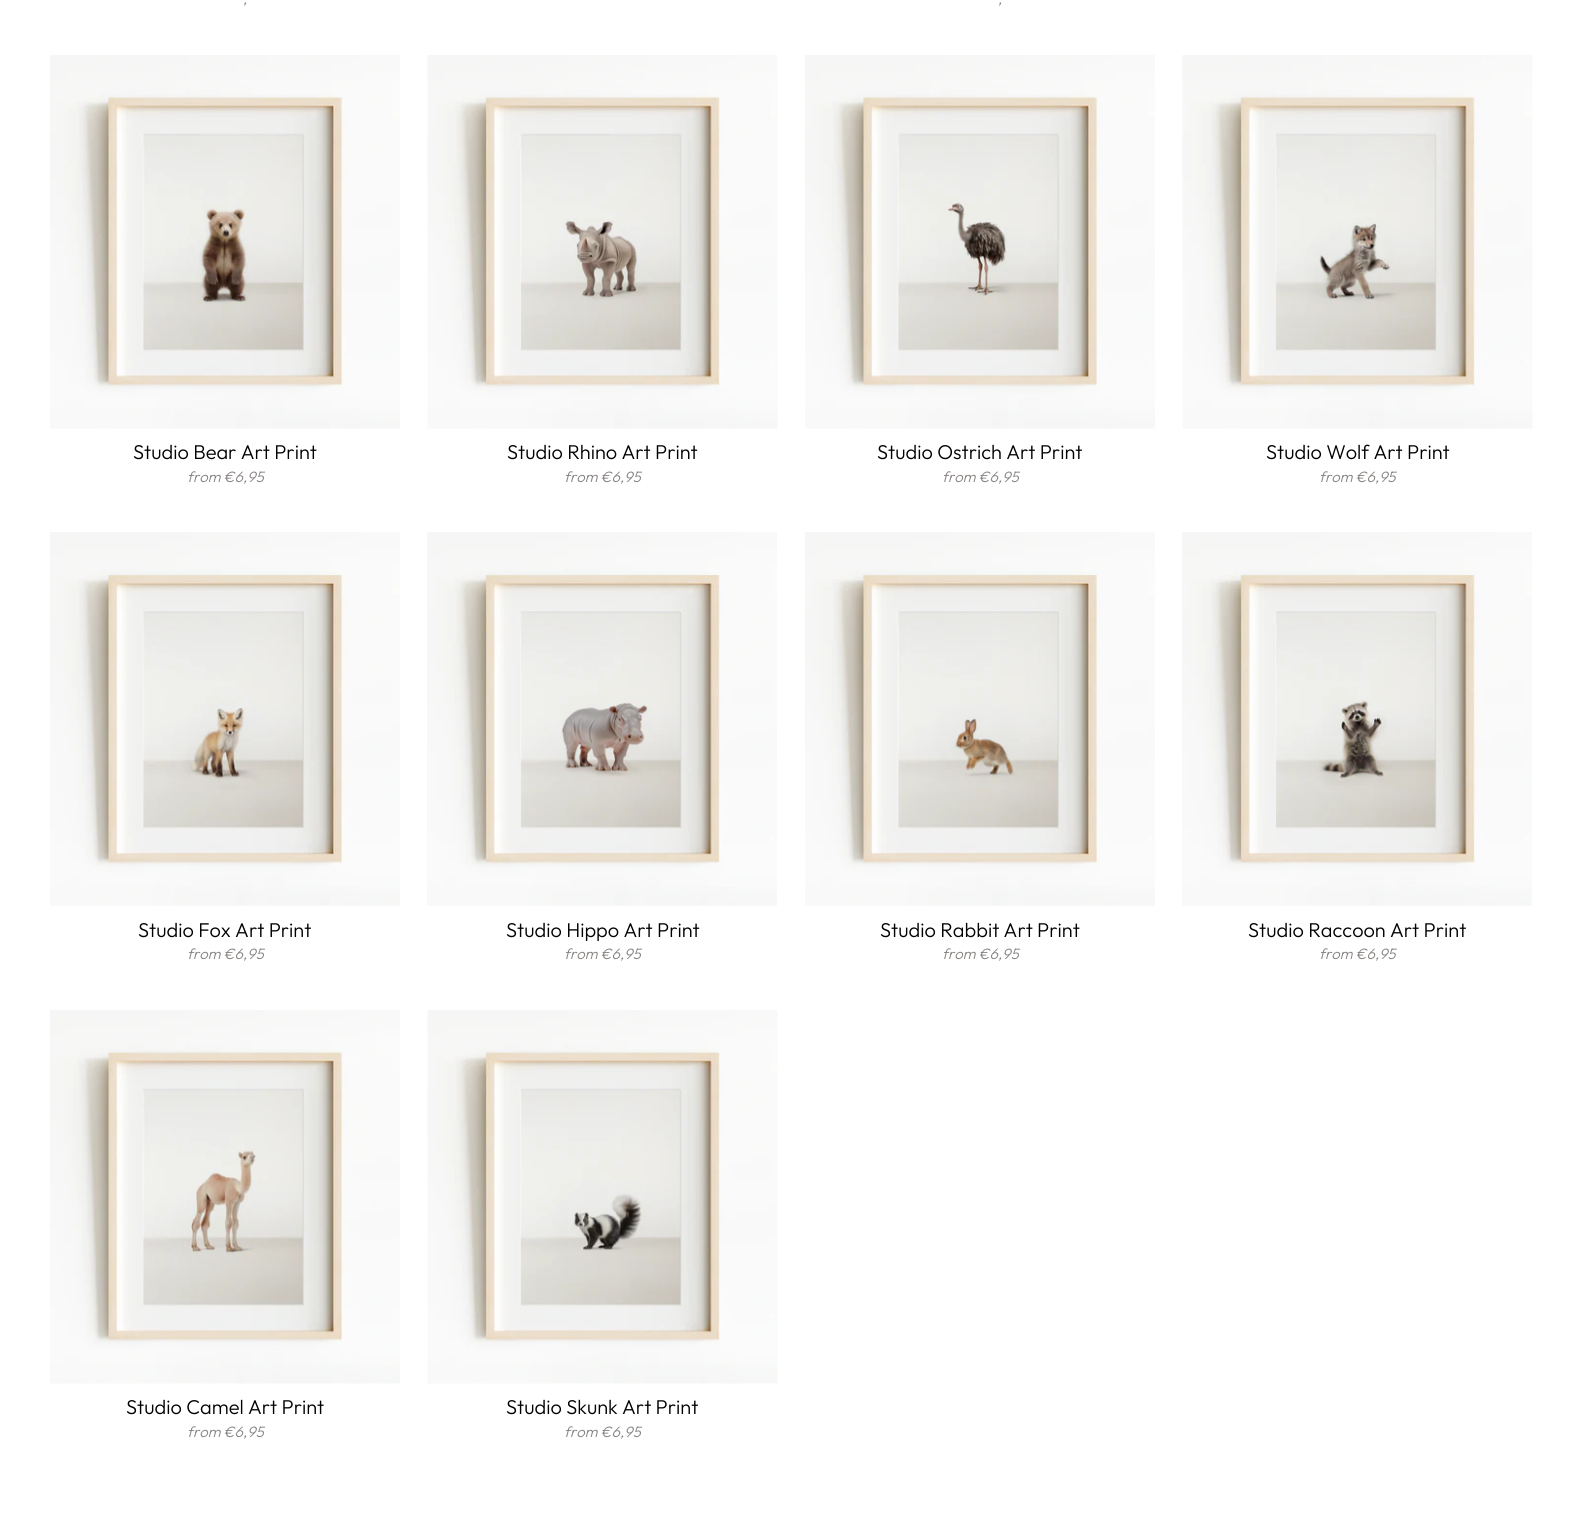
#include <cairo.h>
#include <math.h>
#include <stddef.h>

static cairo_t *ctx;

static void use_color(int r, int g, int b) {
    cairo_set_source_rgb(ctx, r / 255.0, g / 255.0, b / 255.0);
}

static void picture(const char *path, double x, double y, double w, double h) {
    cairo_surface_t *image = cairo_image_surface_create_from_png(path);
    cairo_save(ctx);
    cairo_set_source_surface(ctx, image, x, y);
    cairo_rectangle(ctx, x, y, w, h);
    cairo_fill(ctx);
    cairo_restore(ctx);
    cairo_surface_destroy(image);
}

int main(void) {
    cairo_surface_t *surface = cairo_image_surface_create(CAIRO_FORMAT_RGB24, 1582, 1520);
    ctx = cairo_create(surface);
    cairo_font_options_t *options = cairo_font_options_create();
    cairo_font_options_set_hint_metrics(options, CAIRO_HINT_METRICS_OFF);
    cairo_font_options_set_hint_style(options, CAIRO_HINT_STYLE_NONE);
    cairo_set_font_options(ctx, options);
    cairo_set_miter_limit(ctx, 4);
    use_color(255, 255, 255);
    cairo_paint(ctx);
    cairo_select_font_face(ctx, "Outfit Light", CAIRO_FONT_SLANT_ITALIC, CAIRO_FONT_WEIGHT_NORMAL);
    cairo_set_font_size(ctx, 15);
    use_color(135, 132, 130);
    cairo_move_to(ctx, 243, 4);
    cairo_show_text(ctx, ",");
    cairo_move_to(ctx, 998, 4);
    cairo_show_text(ctx, ",");
    picture("img1.png", 50, 55, 350, 374);
    cairo_select_font_face(ctx, "Outfit Light", CAIRO_FONT_SLANT_NORMAL, CAIRO_FONT_WEIGHT_NORMAL);
    cairo_set_font_size(ctx, 20);
    use_color(0, 0, 0);
    cairo_move_to(ctx, 133, 459);
    cairo_show_text(ctx, "Studio Bear Art Print");
    cairo_select_font_face(ctx, "Outfit Light", CAIRO_FONT_SLANT_ITALIC, CAIRO_FONT_WEIGHT_NORMAL);
    cairo_set_font_size(ctx, 15);
    use_color(135, 132, 130);
    cairo_move_to(ctx, 187, 482);
    cairo_show_text(ctx, "from €6,95");
    picture("img2.png", 427, 55, 351, 374);
    cairo_select_font_face(ctx, "Outfit Light", CAIRO_FONT_SLANT_NORMAL, CAIRO_FONT_WEIGHT_NORMAL);
    cairo_set_font_size(ctx, 20);
    use_color(0, 0, 0);
    cairo_move_to(ctx, 507, 459);
    cairo_show_text(ctx, "Studio Rhino Art Print");
    cairo_select_font_face(ctx, "Outfit Light", CAIRO_FONT_SLANT_ITALIC, CAIRO_FONT_WEIGHT_NORMAL);
    cairo_set_font_size(ctx, 15);
    use_color(135, 132, 130);
    cairo_move_to(ctx, 564, 482);
    cairo_show_text(ctx, "from €6,95");
    picture("img3.png", 805, 55, 350, 374);
    cairo_select_font_face(ctx, "Outfit Light", CAIRO_FONT_SLANT_NORMAL, CAIRO_FONT_WEIGHT_NORMAL);
    cairo_set_font_size(ctx, 20);
    use_color(0, 0, 0);
    cairo_move_to(ctx, 877, 459);
    cairo_show_text(ctx, "Studio Ostrich Art Print");
    cairo_select_font_face(ctx, "Outfit Light", CAIRO_FONT_SLANT_ITALIC, CAIRO_FONT_WEIGHT_NORMAL);
    cairo_set_font_size(ctx, 15);
    use_color(135, 132, 130);
    cairo_move_to(ctx, 942, 482);
    cairo_show_text(ctx, "from €6,95");
    picture("img4.png", 1182, 55, 351, 374);
    cairo_select_font_face(ctx, "Outfit Light", CAIRO_FONT_SLANT_NORMAL, CAIRO_FONT_WEIGHT_NORMAL);
    cairo_set_font_size(ctx, 20);
    use_color(0, 0, 0);
    cairo_move_to(ctx, 1266, 459);
    cairo_show_text(ctx, "Studio Wolf Art Print");
    cairo_select_font_face(ctx, "Outfit Light", CAIRO_FONT_SLANT_ITALIC, CAIRO_FONT_WEIGHT_NORMAL);
    cairo_set_font_size(ctx, 15);
    use_color(135, 132, 130);
    cairo_move_to(ctx, 1319, 482);
    cairo_show_text(ctx, "from €6,95");
    picture("img5.png", 50, 532, 350, 374);
    cairo_select_font_face(ctx, "Outfit Light", CAIRO_FONT_SLANT_NORMAL, CAIRO_FONT_WEIGHT_NORMAL);
    cairo_set_font_size(ctx, 20);
    use_color(0, 0, 0);
    cairo_move_to(ctx, 138, 937);
    cairo_show_text(ctx, "Studio Fox Art Print");
    cairo_select_font_face(ctx, "Outfit Light", CAIRO_FONT_SLANT_ITALIC, CAIRO_FONT_WEIGHT_NORMAL);
    cairo_set_font_size(ctx, 15);
    use_color(135, 132, 130);
    cairo_move_to(ctx, 187, 959);
    cairo_show_text(ctx, "from €6,95");
    picture("img6.png", 427, 532, 350, 374);
    cairo_select_font_face(ctx, "Outfit Light", CAIRO_FONT_SLANT_NORMAL, CAIRO_FONT_WEIGHT_NORMAL);
    cairo_set_font_size(ctx, 20);
    use_color(0, 0, 0);
    cairo_move_to(ctx, 506, 937);
    cairo_show_text(ctx, "Studio Hippo Art Print");
    cairo_select_font_face(ctx, "Outfit Light", CAIRO_FONT_SLANT_ITALIC, CAIRO_FONT_WEIGHT_NORMAL);
    cairo_set_font_size(ctx, 15);
    use_color(135, 132, 130);
    cairo_move_to(ctx, 564, 959);
    cairo_show_text(ctx, "from €6,95");
    picture("img7.png", 805, 532, 350, 374);
    cairo_select_font_face(ctx, "Outfit Light", CAIRO_FONT_SLANT_NORMAL, CAIRO_FONT_WEIGHT_NORMAL);
    cairo_set_font_size(ctx, 20);
    use_color(0, 0, 0);
    cairo_move_to(ctx, 880, 937);
    cairo_show_text(ctx, "Studio Rabbit Art Print");
    cairo_select_font_face(ctx, "Outfit Light", CAIRO_FONT_SLANT_ITALIC, CAIRO_FONT_WEIGHT_NORMAL);
    cairo_set_font_size(ctx, 15);
    use_color(135, 132, 130);
    cairo_move_to(ctx, 942, 959);
    cairo_show_text(ctx, "from €6,95");
    picture("img8.png", 1182, 532, 350, 374);
    cairo_select_font_face(ctx, "Outfit Light", CAIRO_FONT_SLANT_NORMAL, CAIRO_FONT_WEIGHT_NORMAL);
    cairo_set_font_size(ctx, 20);
    use_color(0, 0, 0);
    cairo_move_to(ctx, 1248, 937);
    cairo_show_text(ctx, "Studio Raccoon Art Print");
    cairo_select_font_face(ctx, "Outfit Light", CAIRO_FONT_SLANT_ITALIC, CAIRO_FONT_WEIGHT_NORMAL);
    cairo_set_font_size(ctx, 15);
    use_color(135, 132, 130);
    cairo_move_to(ctx, 1319, 959);
    cairo_show_text(ctx, "from €6,95");
    picture("img9.png", 50, 1010, 350, 374);
    cairo_select_font_face(ctx, "Outfit Light", CAIRO_FONT_SLANT_NORMAL, CAIRO_FONT_WEIGHT_NORMAL);
    cairo_set_font_size(ctx, 20);
    use_color(0, 0, 0);
    cairo_move_to(ctx, 126, 1414);
    cairo_show_text(ctx, "Studio Camel Art Print");
    cairo_select_font_face(ctx, "Outfit Light", CAIRO_FONT_SLANT_ITALIC, CAIRO_FONT_WEIGHT_NORMAL);
    cairo_set_font_size(ctx, 15);
    use_color(135, 132, 130);
    cairo_move_to(ctx, 187, 1437);
    cairo_show_text(ctx, "from €6,95");
    picture("img10.png", 427, 1010, 351, 374);
    cairo_select_font_face(ctx, "Outfit Light", CAIRO_FONT_SLANT_NORMAL, CAIRO_FONT_WEIGHT_NORMAL);
    cairo_set_font_size(ctx, 20);
    use_color(0, 0, 0);
    cairo_move_to(ctx, 506, 1414);
    cairo_show_text(ctx, "Studio Skunk Art Print");
    cairo_select_font_face(ctx, "Outfit Light", CAIRO_FONT_SLANT_ITALIC, CAIRO_FONT_WEIGHT_NORMAL);
    cairo_set_font_size(ctx, 15);
    use_color(135, 132, 130);
    cairo_move_to(ctx, 564, 1437);
    cairo_show_text(ctx, "from €6,95");
    cairo_surface_write_to_png(surface, "result.png");
    cairo_font_options_destroy(options);
    cairo_destroy(ctx);
    cairo_surface_destroy(surface);
    return 0;
}
